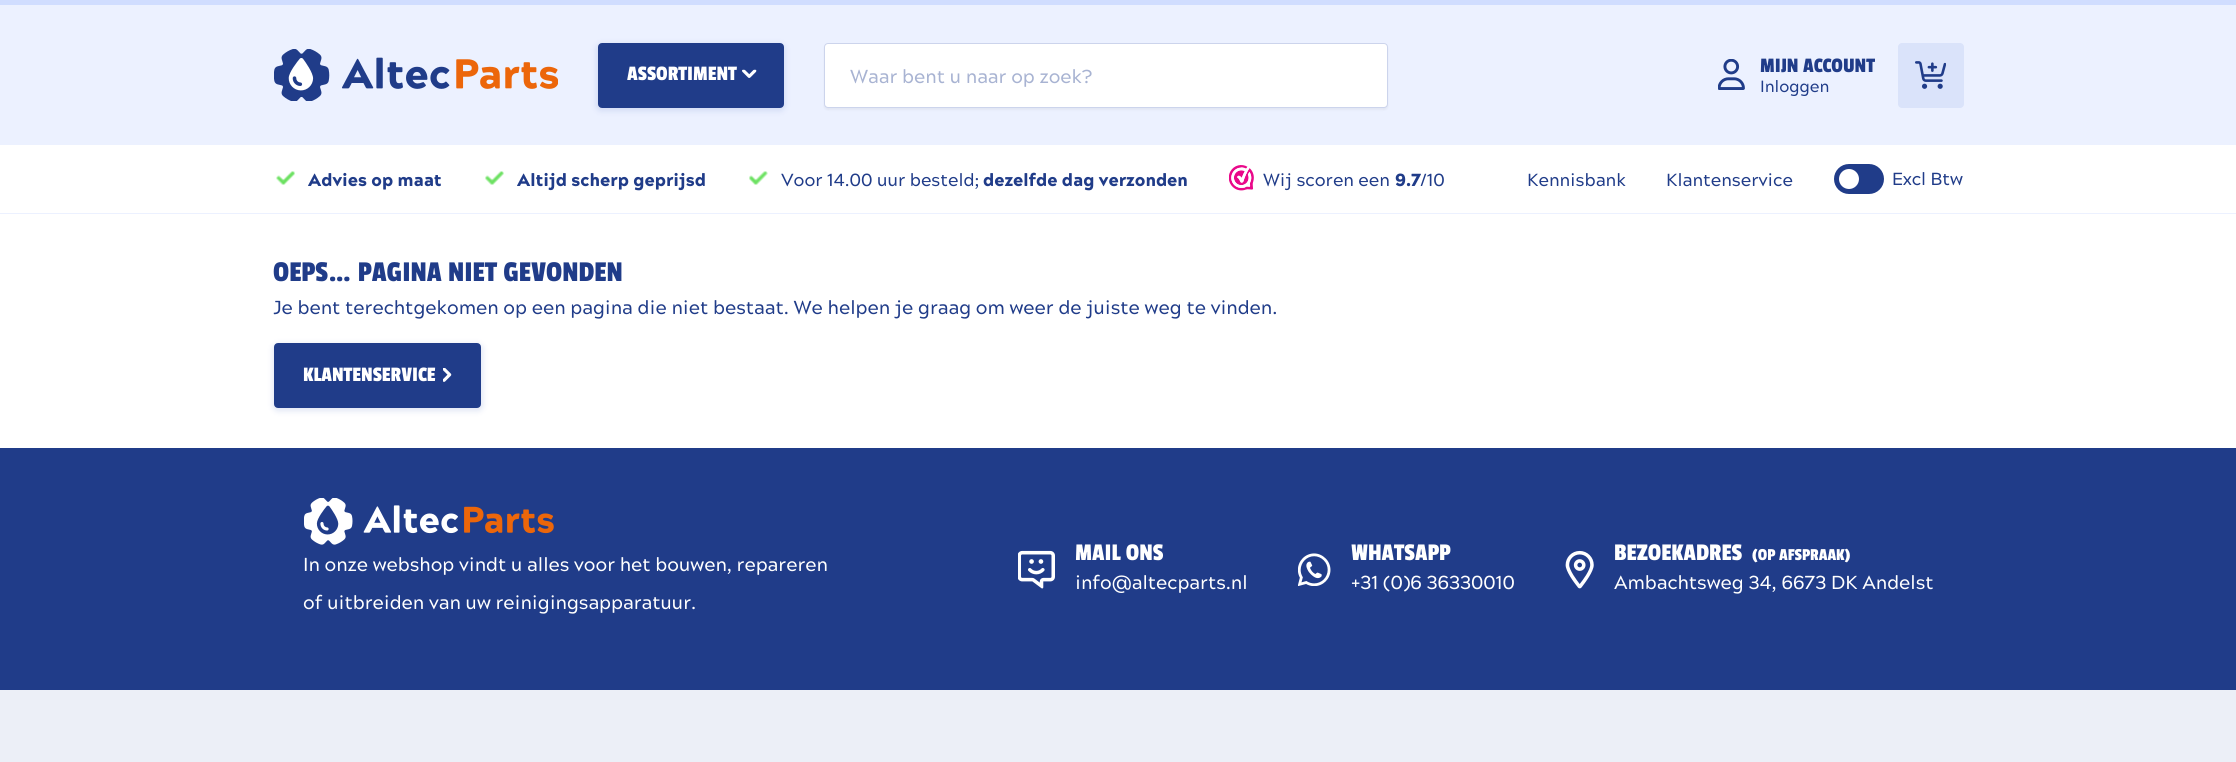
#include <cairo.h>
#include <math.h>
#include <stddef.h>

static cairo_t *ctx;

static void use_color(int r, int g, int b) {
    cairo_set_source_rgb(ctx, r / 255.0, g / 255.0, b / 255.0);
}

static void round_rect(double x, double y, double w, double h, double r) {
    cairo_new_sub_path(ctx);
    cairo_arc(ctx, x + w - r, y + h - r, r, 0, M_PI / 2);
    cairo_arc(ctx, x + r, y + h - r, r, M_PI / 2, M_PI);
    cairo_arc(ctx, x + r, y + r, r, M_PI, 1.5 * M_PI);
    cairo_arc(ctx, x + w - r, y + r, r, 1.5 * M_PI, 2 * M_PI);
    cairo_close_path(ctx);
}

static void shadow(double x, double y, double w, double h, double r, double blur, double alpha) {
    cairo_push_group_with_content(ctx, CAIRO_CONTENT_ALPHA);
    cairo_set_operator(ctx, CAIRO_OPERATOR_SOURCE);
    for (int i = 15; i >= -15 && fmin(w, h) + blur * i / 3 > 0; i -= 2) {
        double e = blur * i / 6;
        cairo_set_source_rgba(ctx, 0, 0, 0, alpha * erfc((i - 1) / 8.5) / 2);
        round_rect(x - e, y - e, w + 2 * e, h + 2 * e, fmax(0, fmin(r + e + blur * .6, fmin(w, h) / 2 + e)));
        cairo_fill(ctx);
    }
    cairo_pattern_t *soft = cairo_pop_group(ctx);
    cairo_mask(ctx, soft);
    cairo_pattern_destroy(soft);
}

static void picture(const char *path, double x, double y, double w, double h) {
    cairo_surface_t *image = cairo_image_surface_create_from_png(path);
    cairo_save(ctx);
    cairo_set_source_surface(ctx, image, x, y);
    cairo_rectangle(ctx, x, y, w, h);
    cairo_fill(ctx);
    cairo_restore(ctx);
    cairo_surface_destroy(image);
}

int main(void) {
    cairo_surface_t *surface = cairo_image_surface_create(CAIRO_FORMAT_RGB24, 2236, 762);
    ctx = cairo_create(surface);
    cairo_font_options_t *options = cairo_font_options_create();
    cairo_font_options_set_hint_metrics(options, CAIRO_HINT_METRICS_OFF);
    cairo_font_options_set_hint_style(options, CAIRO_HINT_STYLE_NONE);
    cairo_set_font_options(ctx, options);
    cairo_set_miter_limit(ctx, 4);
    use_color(255, 255, 255);
    cairo_paint(ctx);
    use_color(236, 241, 255);
    cairo_rectangle(ctx, 0, 5, 2236, 140);
    cairo_fill(ctx);
    use_color(208, 221, 255);
    cairo_rectangle(ctx, 0, 0, 2236, 5);
    cairo_fill(ctx);
    picture("img1.png", 274, 49, 284, 52);
    use_color(134, 155, 214);
    shadow(596, 44, 189, 67, 5, 3, 0.25);
    use_color(32, 60, 137);
    round_rect(599.5, 44.5, 183, 62, 2.5);
    cairo_fill_preserve(ctx);
    cairo_set_line_width(ctx, 3);
    cairo_stroke(ctx);
    cairo_select_font_face(ctx, "Passion One", CAIRO_FONT_SLANT_NORMAL, CAIRO_FONT_WEIGHT_NORMAL);
    cairo_set_font_size(ctx, 21.5);
    use_color(255, 255, 255);
    cairo_move_to(ctx, 627, 80);
    cairo_show_text(ctx, "ASSORTIMENT");
    picture("img2.png", 742, 69, 15, 9);
    use_color(0, 0, 0);
    shadow(824, 45, 564, 65, 4, 1, 0.05);
    use_color(255, 255, 255);
    round_rect(824.5, 43.5, 563, 64, 3.5);
    cairo_fill_preserve(ctx);
    use_color(204, 212, 236);
    cairo_set_line_width(ctx, 1);
    cairo_stroke(ctx);
    cairo_select_font_face(ctx, "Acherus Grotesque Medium", CAIRO_FONT_SLANT_NORMAL, CAIRO_FONT_WEIGHT_NORMAL);
    cairo_set_font_size(ctx, 18.8);
    use_color(168, 179, 210);
    cairo_move_to(ctx, 850, 83);
    cairo_show_text(ctx, "Waar bent u naar op zoek?");
    picture("img3.png", 1718, 59, 27, 31);
    cairo_select_font_face(ctx, "Passion One", CAIRO_FONT_SLANT_NORMAL, CAIRO_FONT_WEIGHT_NORMAL);
    cairo_set_font_size(ctx, 21.5);
    use_color(32, 60, 137);
    cairo_move_to(ctx, 1760, 72);
    cairo_show_text(ctx, "MIJN ACCOUNT");
    cairo_select_font_face(ctx, "Acherus Grotesque Medium", CAIRO_FONT_SLANT_NORMAL, CAIRO_FONT_WEIGHT_NORMAL);
    cairo_set_font_size(ctx, 16.25);
    cairo_move_to(ctx, 1760, 92);
    cairo_show_text(ctx, "Inloggen");
    use_color(218, 227, 250);
    round_rect(1898, 43, 66, 65, 4);
    cairo_fill(ctx);
    picture("img4.png", 1915, 61, 31, 28);
    use_color(236, 241, 255);
    cairo_rectangle(ctx, 0, 213, 2236, 1);
    cairo_fill(ctx);
    picture("img5.png", 276, 171, 19, 14);
    cairo_select_font_face(ctx, "Acherus Grotesque Black", CAIRO_FONT_SLANT_NORMAL, CAIRO_FONT_WEIGHT_NORMAL);
    cairo_set_font_size(ctx, 17.5);
    use_color(32, 60, 137);
    cairo_move_to(ctx, 308, 186);
    cairo_show_text(ctx, "Advies op maat");
    picture("img6.png", 485, 171, 19, 14);
    cairo_move_to(ctx, 517, 186);
    cairo_show_text(ctx, "Altijd scherp geprijsd");
    picture("img7.png", 749, 171, 19, 14);
    cairo_select_font_face(ctx, "Acherus Grotesque Medium", CAIRO_FONT_SLANT_NORMAL, CAIRO_FONT_WEIGHT_NORMAL);
    cairo_move_to(ctx, 781, 186);
    cairo_show_text(ctx, "Voor 14.00 uur besteld;");
    cairo_select_font_face(ctx, "Acherus Grotesque Black", CAIRO_FONT_SLANT_NORMAL, CAIRO_FONT_WEIGHT_NORMAL);
    cairo_move_to(ctx, 983, 186);
    cairo_show_text(ctx, "dezelfde dag verzonden");
    picture("img8.png", 1229, 165, 25, 26);
    cairo_select_font_face(ctx, "Acherus Grotesque Medium", CAIRO_FONT_SLANT_NORMAL, CAIRO_FONT_WEIGHT_NORMAL);
    cairo_move_to(ctx, 1263, 186);
    cairo_show_text(ctx, "Wij scoren een");
    cairo_select_font_face(ctx, "Acherus Grotesque Black", CAIRO_FONT_SLANT_NORMAL, CAIRO_FONT_WEIGHT_NORMAL);
    cairo_move_to(ctx, 1395, 186);
    cairo_show_text(ctx, "9.7");
    cairo_select_font_face(ctx, "Acherus Grotesque Medium", CAIRO_FONT_SLANT_NORMAL, CAIRO_FONT_WEIGHT_NORMAL);
    cairo_move_to(ctx, 1420, 186);
    cairo_show_text(ctx, "/10");
    cairo_move_to(ctx, 1527, 186);
    cairo_show_text(ctx, "Kennisbank");
    cairo_move_to(ctx, 1666, 186);
    cairo_show_text(ctx, "Klantenservice");
    round_rect(1835.5, 165.5, 47, 27, 13.5);
    cairo_fill_preserve(ctx);
    cairo_set_line_width(ctx, 3);
    cairo_stroke(ctx);
    use_color(255, 255, 255);
    cairo_arc(ctx, 1849, 179, 10, 0, 2 * M_PI);
    cairo_fill(ctx);
    use_color(32, 60, 137);
    cairo_move_to(ctx, 1892, 185);
    cairo_show_text(ctx, "Excl Btw");
    cairo_select_font_face(ctx, "Passion One", CAIRO_FONT_SLANT_NORMAL, CAIRO_FONT_WEIGHT_NORMAL);
    cairo_set_font_size(ctx, 30);
    cairo_move_to(ctx, 273, 281);
    cairo_show_text(ctx, "OEPS… PAGINA NIET GEVONDEN");
    cairo_select_font_face(ctx, "Acherus Grotesque Medium", CAIRO_FONT_SLANT_NORMAL, CAIRO_FONT_WEIGHT_NORMAL);
    cairo_set_font_size(ctx, 18.8);
    cairo_move_to(ctx, 273, 314);
    cairo_show_text(ctx, "Je bent terechtgekomen op een pagina die niet bestaat. We helpen je graag om weer de juiste weg te vinden.");
    use_color(134, 155, 214);
    shadow(273, 344, 210, 67, 5, 3, 0.25);
    use_color(32, 60, 137);
    round_rect(275.5, 344.5, 204, 62, 2.5);
    cairo_fill_preserve(ctx);
    cairo_stroke(ctx);
    cairo_select_font_face(ctx, "Passion One", CAIRO_FONT_SLANT_NORMAL, CAIRO_FONT_WEIGHT_NORMAL);
    cairo_set_font_size(ctx, 21.5);
    use_color(255, 255, 255);
    cairo_move_to(ctx, 303, 381);
    cairo_show_text(ctx, "KLANTENSERVICE");
    picture("img9.png", 443, 368, 9, 14);
    use_color(236, 239, 247);
    cairo_rectangle(ctx, 0, 690, 2236, 72);
    cairo_fill(ctx);
    use_color(32, 60, 137);
    cairo_rectangle(ctx, 0, 448, 2236, 242);
    cairo_fill(ctx);
    picture("img10.png", 304, 498, 250, 47);
    cairo_select_font_face(ctx, "Acherus Grotesque Medium", CAIRO_FONT_SLANT_NORMAL, CAIRO_FONT_WEIGHT_NORMAL);
    cairo_set_font_size(ctx, 18.8);
    use_color(255, 255, 255);
    cairo_move_to(ctx, 303, 571);
    cairo_show_text(ctx, "In onze webshop vindt u alles voor het bouwen, repareren");
    cairo_move_to(ctx, 303, 609);
    cairo_show_text(ctx, "of uitbreiden van uw reinigingsapparatuur.");
    picture("img11.png", 1018, 550, 37, 39);
    cairo_select_font_face(ctx, "Passion One", CAIRO_FONT_SLANT_NORMAL, CAIRO_FONT_WEIGHT_NORMAL);
    cairo_set_font_size(ctx, 25);
    cairo_move_to(ctx, 1075, 560);
    cairo_show_text(ctx, "MAIL ONS");
    cairo_select_font_face(ctx, "Acherus Grotesque Medium", CAIRO_FONT_SLANT_NORMAL, CAIRO_FONT_WEIGHT_NORMAL);
    cairo_set_font_size(ctx, 18.8);
    cairo_move_to(ctx, 1075, 589);
    cairo_show_text(ctx, "info@altecparts.nl");
    picture("img12.png", 1298, 553, 33, 33);
    cairo_select_font_face(ctx, "Passion One", CAIRO_FONT_SLANT_NORMAL, CAIRO_FONT_WEIGHT_NORMAL);
    cairo_set_font_size(ctx, 25);
    cairo_move_to(ctx, 1351, 560);
    cairo_show_text(ctx, "WHATSAPP");
    cairo_select_font_face(ctx, "Acherus Grotesque Medium", CAIRO_FONT_SLANT_NORMAL, CAIRO_FONT_WEIGHT_NORMAL);
    cairo_set_font_size(ctx, 18.8);
    cairo_move_to(ctx, 1351, 589);
    cairo_show_text(ctx, "+31 (0)6 36330010");
    picture("img13.png", 1565, 550, 29, 39);
    cairo_select_font_face(ctx, "Passion One", CAIRO_FONT_SLANT_NORMAL, CAIRO_FONT_WEIGHT_NORMAL);
    cairo_set_font_size(ctx, 25);
    cairo_move_to(ctx, 1614, 560);
    cairo_show_text(ctx, "BEZOEKADRES");
    cairo_set_font_size(ctx, 17.5);
    cairo_move_to(ctx, 1752, 560);
    cairo_show_text(ctx, "(OP AFSPRAAK)");
    cairo_select_font_face(ctx, "Acherus Grotesque Medium", CAIRO_FONT_SLANT_NORMAL, CAIRO_FONT_WEIGHT_NORMAL);
    cairo_set_font_size(ctx, 18.8);
    cairo_move_to(ctx, 1614, 589);
    cairo_show_text(ctx, "Ambachtsweg 34, 6673 DK Andelst");
    cairo_surface_write_to_png(surface, "result.png");
    cairo_font_options_destroy(options);
    cairo_destroy(ctx);
    cairo_surface_destroy(surface);
    return 0;
}
